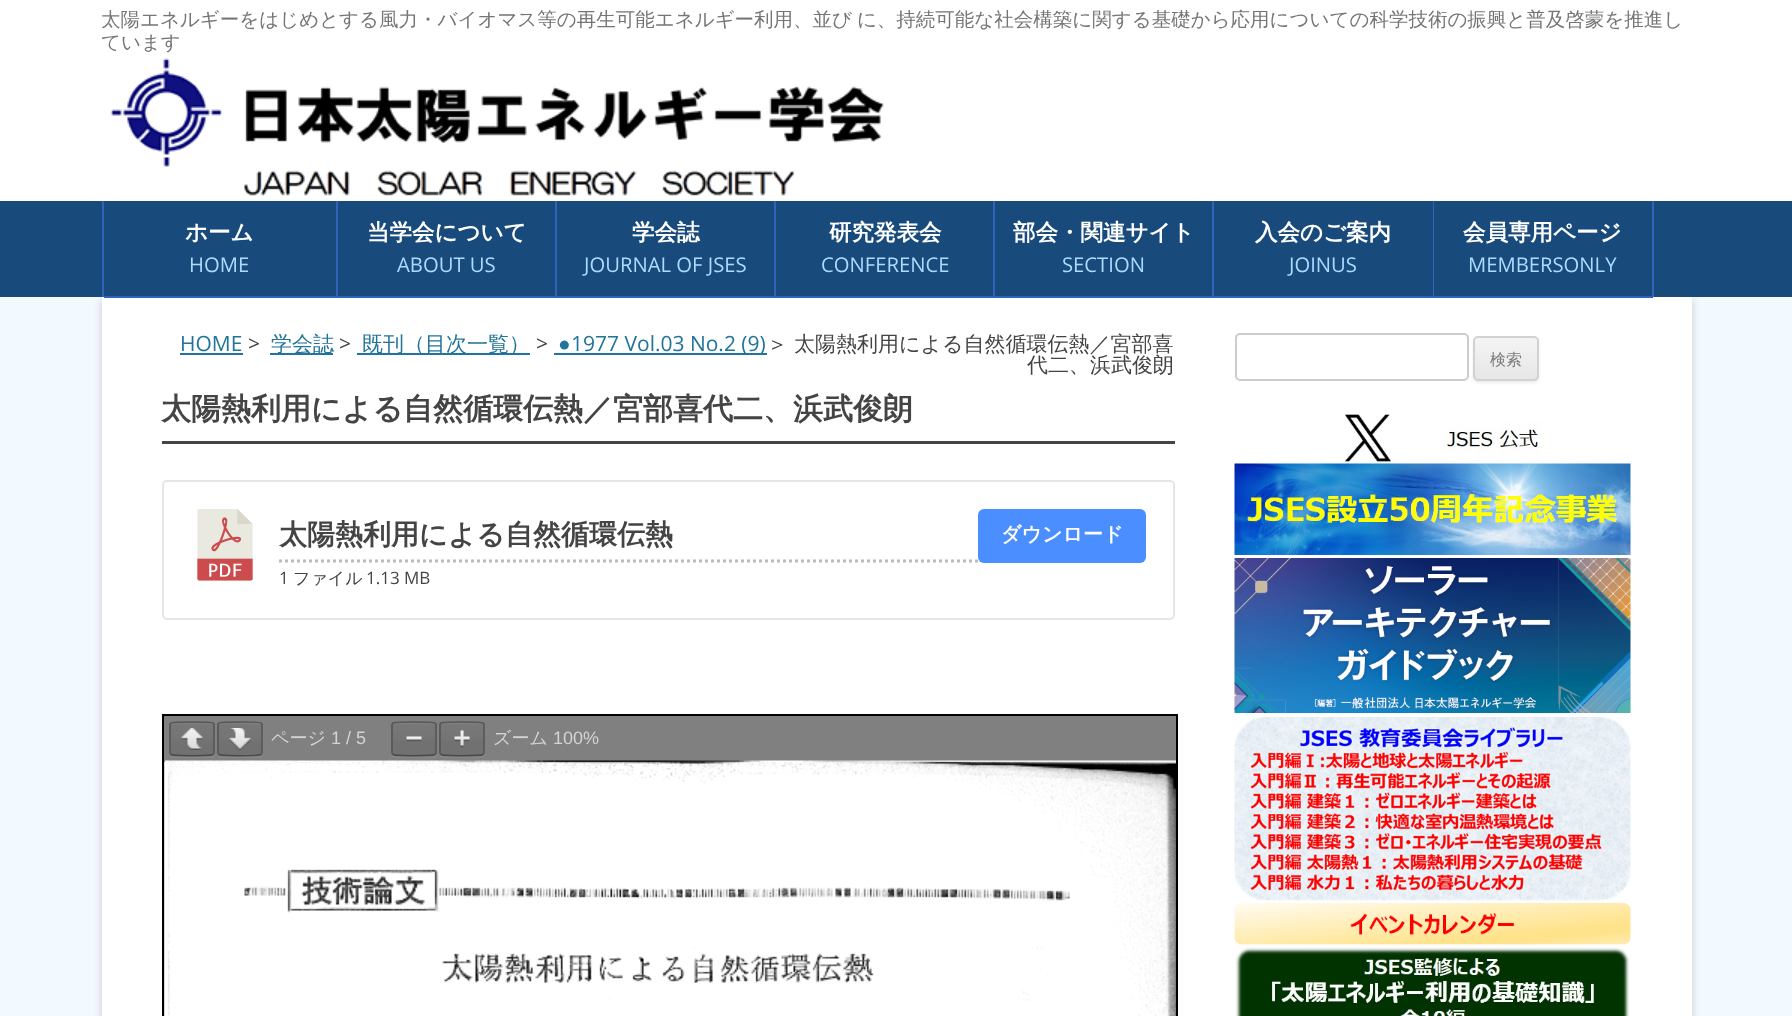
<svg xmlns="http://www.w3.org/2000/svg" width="1792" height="1016">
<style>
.a{font:500 19.5px WenQuanYi Zen Hei;fill:#757575}
.b{font:bold 22.5px WenQuanYi Zen Hei;fill:#fff}
.c{font:20.25px Open Sans;fill:#acdbff}
.d{font:21px Open Sans;fill:#21759b}
.e{font:21px Open Sans;fill:#444}
.f{font:500 21px WenQuanYi Zen Hei;fill:#21759b}
.g{font:21px Liberation Sans;fill:#21759b}
.h{font:500 21px WenQuanYi Zen Hei;fill:#444}
.i{font:bold 30px WenQuanYi Zen Hei;fill:#444}
.j{font:bold 28px WenQuanYi Zen Hei;fill:#444}
.k{font:17px Open Sans;fill:#444}
.l{font:500 17px WenQuanYi Zen Hei;fill:#444}
.m{font:bold 20px WenQuanYi Zen Hei;fill:#fff}
.n{font:500 18px WenQuanYi Zen Hei;fill:#d3d3d3}
.o{font:18px Liberation Sans;fill:#d3d3d3}
.p{font:500 16px WenQuanYi Zen Hei;fill:#7c7c7c}
</style>
<defs>
<linearGradient id="g1" gradientUnits="userSpaceOnUse" x1="192" y1="723" x2="192" y2="755"><stop offset="0" stop-color="#fff" stop-opacity="0.05"/><stop offset="1" stop-color="#fff" stop-opacity="0"/></linearGradient>
<linearGradient id="g2" gradientUnits="userSpaceOnUse" x1="240" y1="723" x2="240" y2="755"><stop offset="0" stop-color="#fff" stop-opacity="0.05"/><stop offset="1" stop-color="#fff" stop-opacity="0"/></linearGradient>
<linearGradient id="g3" gradientUnits="userSpaceOnUse" x1="414" y1="723" x2="414" y2="755"><stop offset="0" stop-color="#fff" stop-opacity="0.05"/><stop offset="1" stop-color="#fff" stop-opacity="0"/></linearGradient>
<linearGradient id="g4" gradientUnits="userSpaceOnUse" x1="462" y1="723" x2="462" y2="755"><stop offset="0" stop-color="#fff" stop-opacity="0.05"/><stop offset="1" stop-color="#fff" stop-opacity="0"/></linearGradient>
<clipPath id="clip1"><rect x="1473" y="336" width="66" height="45" rx="5"/></clipPath>
<linearGradient id="g5" gradientUnits="userSpaceOnUse" x1="1506" y1="338" x2="1506" y2="380"><stop offset="0" stop-color="#f4f4f4"/><stop offset="1" stop-color="#e6e6e6"/></linearGradient>
</defs>
<rect width="100%" height="100%" fill="#f2f9ff"/>
<path fill="#fff" d="M0 0h1792v201H0z"/>
<image href="1.png" x="110" y="58" width="774" height="138"/>
<path fill="#184a7b" d="M0 201h1792v96H0z"/>
<path fill="#3063bc" d="M102 201h2v96H102z"/>
<path fill="#6464644d" filter="blur(4.5px)" d="M102 300h1590v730H102z"/>
<path fill="#fff" d="M102 297h1590v719H102z"/>
<path fill="#3063bc" d="M104 296h1549v2H104z"/>
<path fill="#184a7b" d="M105 295h231v1H105z"/>
<path fill="#3063bc" d="M336 201h2v95H336z"/>
<path fill="#184a7b" d="M338 295h217v1H338z"/>
<path fill="#3063bc" d="M555 201h2v95H555z"/>
<path fill="#184a7b" d="M557 295h217v1H557z"/>
<path fill="#3063bc" d="M774 201h2v95H774z"/>
<path fill="#184a7b" d="M776 295h217v1H776z"/>
<path fill="#3063bc" d="M993 201h2v95H993z"/>
<path fill="#184a7b" d="M995 295h217v1H995z"/>
<path fill="#3063bc" d="M1212 201h2v95H1212z"/>
<path fill="#184a7b" d="M1214 295h219v1H1214z"/>
<path fill="#3063bc" d="M1433 201h1v95H1433z"/>
<path fill="#3063bc" d="M1653 296h1v1H1653z"/>
<path fill="#184a7b" d="M1434 295h218v1H1434z"/>
<path fill="#3063bc" d="M1652 201h2v95H1652z"/>
<path fill="#21759b" d="M180 353h63v2H180z"/>
<path fill="#21759b" d="M270 353h63v2H270z"/>
<path fill="#21759b" d="M357 353h173v2H357z"/>
<path fill="#21759b" d="M554 353h213v2H554z"/>
<path fill="#444" d="M162 441h1013v3H162z"/>
<rect fill="none" stroke="#e5e5e5" stroke-width="2" x="163" y="481" width="1011" height="138" rx="4"/>
<image href="2.png" x="197" y="509" width="56" height="72"/>
<path fill="none" stroke="#b8bdc1" stroke-width="3" stroke-dasharray="3 3" d="M279 561h699"/>
<rect fill="#4a8eff" x="978" y="509" width="168" height="54" rx="6"/>
<path fill="#d3d3d3" d="M164 762h1v254H164z"/>
<path fill="none" stroke="#000" stroke-width="2" d="M163 715h1014v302H163z"/>
<path fill="#808080" d="M164 716h1012v46H164z"/>
<path fill="#868686" d="M170 755c0 1 1 3 2 3h27c20 0 16 3 16-18c0-2 1-13-1-16v24c0 9 0 8-9 8h-26c-2 0-7 1-9-1z"/>
<rect fill="#717171" x="171" y="723" width="42" height="32" rx="1.5"/>
<path fill="url(#g1)" d="M171 723h42v18H171z"/>
<path fill="#7f7f7f" d="M172 724h40l1 2c0-5-3-3-8-3h-26c-5 0-8-2-8 3z"/>
<path fill="none" stroke="#575757" stroke-width="1.5" d="M171 723c1-1.5 41-1.5 42 0"/>
<path fill="none" stroke="#00000061" stroke-width="1.5" d="M213 723c.5 .5 1 1 1 1.5v28.5c0 .5-.5 1-1 1.5"/>
<path fill="none" stroke="#0000006b" stroke-width="1.5" d="M213 754.5c-1 1.5-41 1.5-42 0"/>
<path fill="none" stroke="#00000061" stroke-width="1.5" d="M171 754.5c-.5-.5-1-1-1-1.5v-28.5c0-.5 .5-1 1-1.5"/>
<image href="3.png" x="181" y="728" width="22" height="22"/>
<path fill="#868686" d="M218 755c0 1 1 3 2 3h27c20 0 16 3 16-18c0-2 1-13-1-16v24c0 9 0 8-9 8h-26c-2 0-7 1-9-1z"/>
<rect fill="#717171" x="219" y="723" width="42" height="32" rx="1.5"/>
<path fill="url(#g2)" d="M219 723h42v18H219z"/>
<path fill="#7f7f7f" d="M220 724h40l1 2c0-5-3-3-8-3h-26c-5 0-8-2-8 3z"/>
<path fill="none" stroke="#575757" stroke-width="1.5" d="M219 723c1-1.5 41-1.5 42 0"/>
<path fill="none" stroke="#00000061" stroke-width="1.5" d="M261 723c.5 .5 1 1 1 1.5v28.5c0 .5-.5 1-1 1.5"/>
<path fill="none" stroke="#0000006b" stroke-width="1.5" d="M261 754.5c-1 1.5-41 1.5-42 0"/>
<path fill="none" stroke="#00000061" stroke-width="1.5" d="M219 754.5c-.5-.5-1-1-1-1.5v-28.5c0-.5 .5-1 1-1.5"/>
<image href="4.png" x="229" y="728" width="22" height="22"/>
<path fill="#868686" d="M392 755c0 1 1 3 2 3h27c20 0 16 3 16-18c0-2 1-13-1-16v24c0 9 0 8-9 8h-26c-2 0-7 1-9-1z"/>
<rect fill="#717171" x="393" y="723" width="42" height="32" rx="1.5"/>
<path fill="url(#g3)" d="M393 723h42v18H393z"/>
<path fill="#7f7f7f" d="M394 724h40l1 2c0-5-3-3-8-3h-26c-5 0-8-2-8 3z"/>
<path fill="none" stroke="#575757" stroke-width="1.5" d="M393 723c1-1.5 41-1.5 42 0"/>
<path fill="none" stroke="#00000061" stroke-width="1.5" d="M435 723c.5 .5 1 1 1 1.5v28.5c0 .5-.5 1-1 1.5"/>
<path fill="none" stroke="#0000006b" stroke-width="1.5" d="M435 754.5c-1 1.5-41 1.5-42 0"/>
<path fill="none" stroke="#00000061" stroke-width="1.5" d="M393 754.5c-.5-.5-1-1-1-1.5v-28.5c0-.5 .5-1 1-1.5"/>
<image href="5.png" x="406" y="736" width="16" height="6"/>
<path fill="#868686" d="M440 755c0 1 1 3 2 3h27c20 0 16 3 16-18c0-2 1-13-1-16v24c0 9 0 8-9 8h-26c-2 0-7 1-9-1z"/>
<rect fill="#717171" x="441" y="723" width="42" height="32" rx="1.5"/>
<path fill="url(#g4)" d="M441 723h42v18H441z"/>
<path fill="#7f7f7f" d="M442 724h40l1 2c0-5-3-3-8-3h-26c-5 0-8-2-8 3z"/>
<path fill="none" stroke="#575757" stroke-width="1.5" d="M441 723c1-1.5 41-1.5 42 0"/>
<path fill="none" stroke="#00000061" stroke-width="1.5" d="M483 723c.5 .5 1 1 1 1.5v28.5c0 .5-.5 1-1 1.5"/>
<path fill="none" stroke="#0000006b" stroke-width="1.5" d="M483 754.5c-1 1.5-41 1.5-42 0"/>
<path fill="none" stroke="#00000061" stroke-width="1.5" d="M441 754.5c-.5-.5-1-1-1-1.5v-28.5c0-.5 .5-1 1-1.5"/>
<image href="6.png" x="454" y="730" width="16" height="18"/>
<image href="7.png" x="165" y="760" width="1011" height="256"/>
<rect fill="none" stroke="#ccc" stroke-width="2" x="1236" y="334" width="232" height="46" rx="4"/>
<rect fill="#4040401a" filter="blur(1.5px)" x="1473" y="338" width="66" height="45" rx="5"/>
<g clip-path="url(#clip1)">
<path fill="url(#g5)" d="M1473 338h66v42H1473z"/>
</g>
<rect fill="none" stroke="#d2d2d2" stroke-width="2" x="1474" y="337" width="64" height="43" rx="4"/>
<image href="8.png" x="1344" y="414" width="200" height="49"/>
<image href="9.png" x="1234" y="463" width="397" height="92"/>
<image href="10.png" x="1234" y="558" width="397" height="155"/>
<image href="11.png" x="1234" y="717" width="397" height="184"/>
<image href="12.png" x="1234" y="903" width="397" height="42"/>
<image href="13.png" x="1235" y="947" width="395" height="69"/>
<text class="a" x="101" y="26" word-spacing="-1">太陽エネルギーをはじめとする風力・バイオマス等の再生可能エネルギー利用、並び に、持続可能な社会構築に関する基礎から応用についての科学技術の振興と普及啓蒙を推進し</text>
<text class="a" x="101" y="49">ています</text>
<text class="b" x="185" y="240">ホーム</text>
<text class="c" x="189" y="272">HOME</text>
<text class="b" x="367" y="240">当学会について</text>
<text class="c" x="397" y="272">ABOUT US</text>
<text class="b" x="632" y="240">学会誌</text>
<text class="c" x="584" y="272">JOURNAL OF JSES</text>
<text class="b" x="829" y="240">研究発表会</text>
<text class="c" x="821" y="272">CONFERENCE</text>
<text class="b" x="1013" y="240">部会・関連サイト</text>
<text class="c" x="1062" y="272">SECTION</text>
<text class="b" x="1255" y="240">入会のご案内</text>
<text class="c" x="1289" y="272">JOINUS</text>
<text class="b" x="1463" y="240">会員専用ページ</text>
<text class="c" x="1468" y="272">MEMBERSONLY</text>
<text class="d" x="180" y="351">HOME</text>
<text class="e" x="248" y="351">&gt;</text>
<text class="f" x="271" y="351">学会誌</text>
<text class="e" x="339" y="351">&gt;</text>
<text class="f" x="362" y="351">既刊（目次一覧）</text>
<text class="e" x="536" y="351">&gt;</text>
<text class="g" x="558" y="351">●</text>
<text class="d" x="571" y="351">1977 Vol.03 No.2 (9)</text>
<text class="h" x="771" y="351">&gt;</text>
<text class="h" x="794" y="351">太陽熱利用による自然循環伝熱／宮部喜</text>
<text class="h" x="1027" y="372">代二、浜武俊朗</text>
<text class="i" x="161" y="419">太陽熱利用による自然循環伝熱／宮部喜代二、浜武俊朗</text>
<text class="j" x="279" y="544">太陽熱利用による自然循環伝熱</text>
<text class="k" x="279" y="584">1</text>
<text class="l" x="293" y="584">ファイル</text>
<text class="k" x="366" y="584">1.13 MB</text>
<text class="m" x="1001" y="541">ダウンロード</text>
<text class="n" x="271" y="744">ページ</text>
<text class="o" x="331" y="744">1 / 5</text>
<text class="n" x="493" y="744">ズーム</text>
<text class="o" x="553" y="744">100%</text>
<text class="p" x="1490" y="365">検索</text>
</svg>
